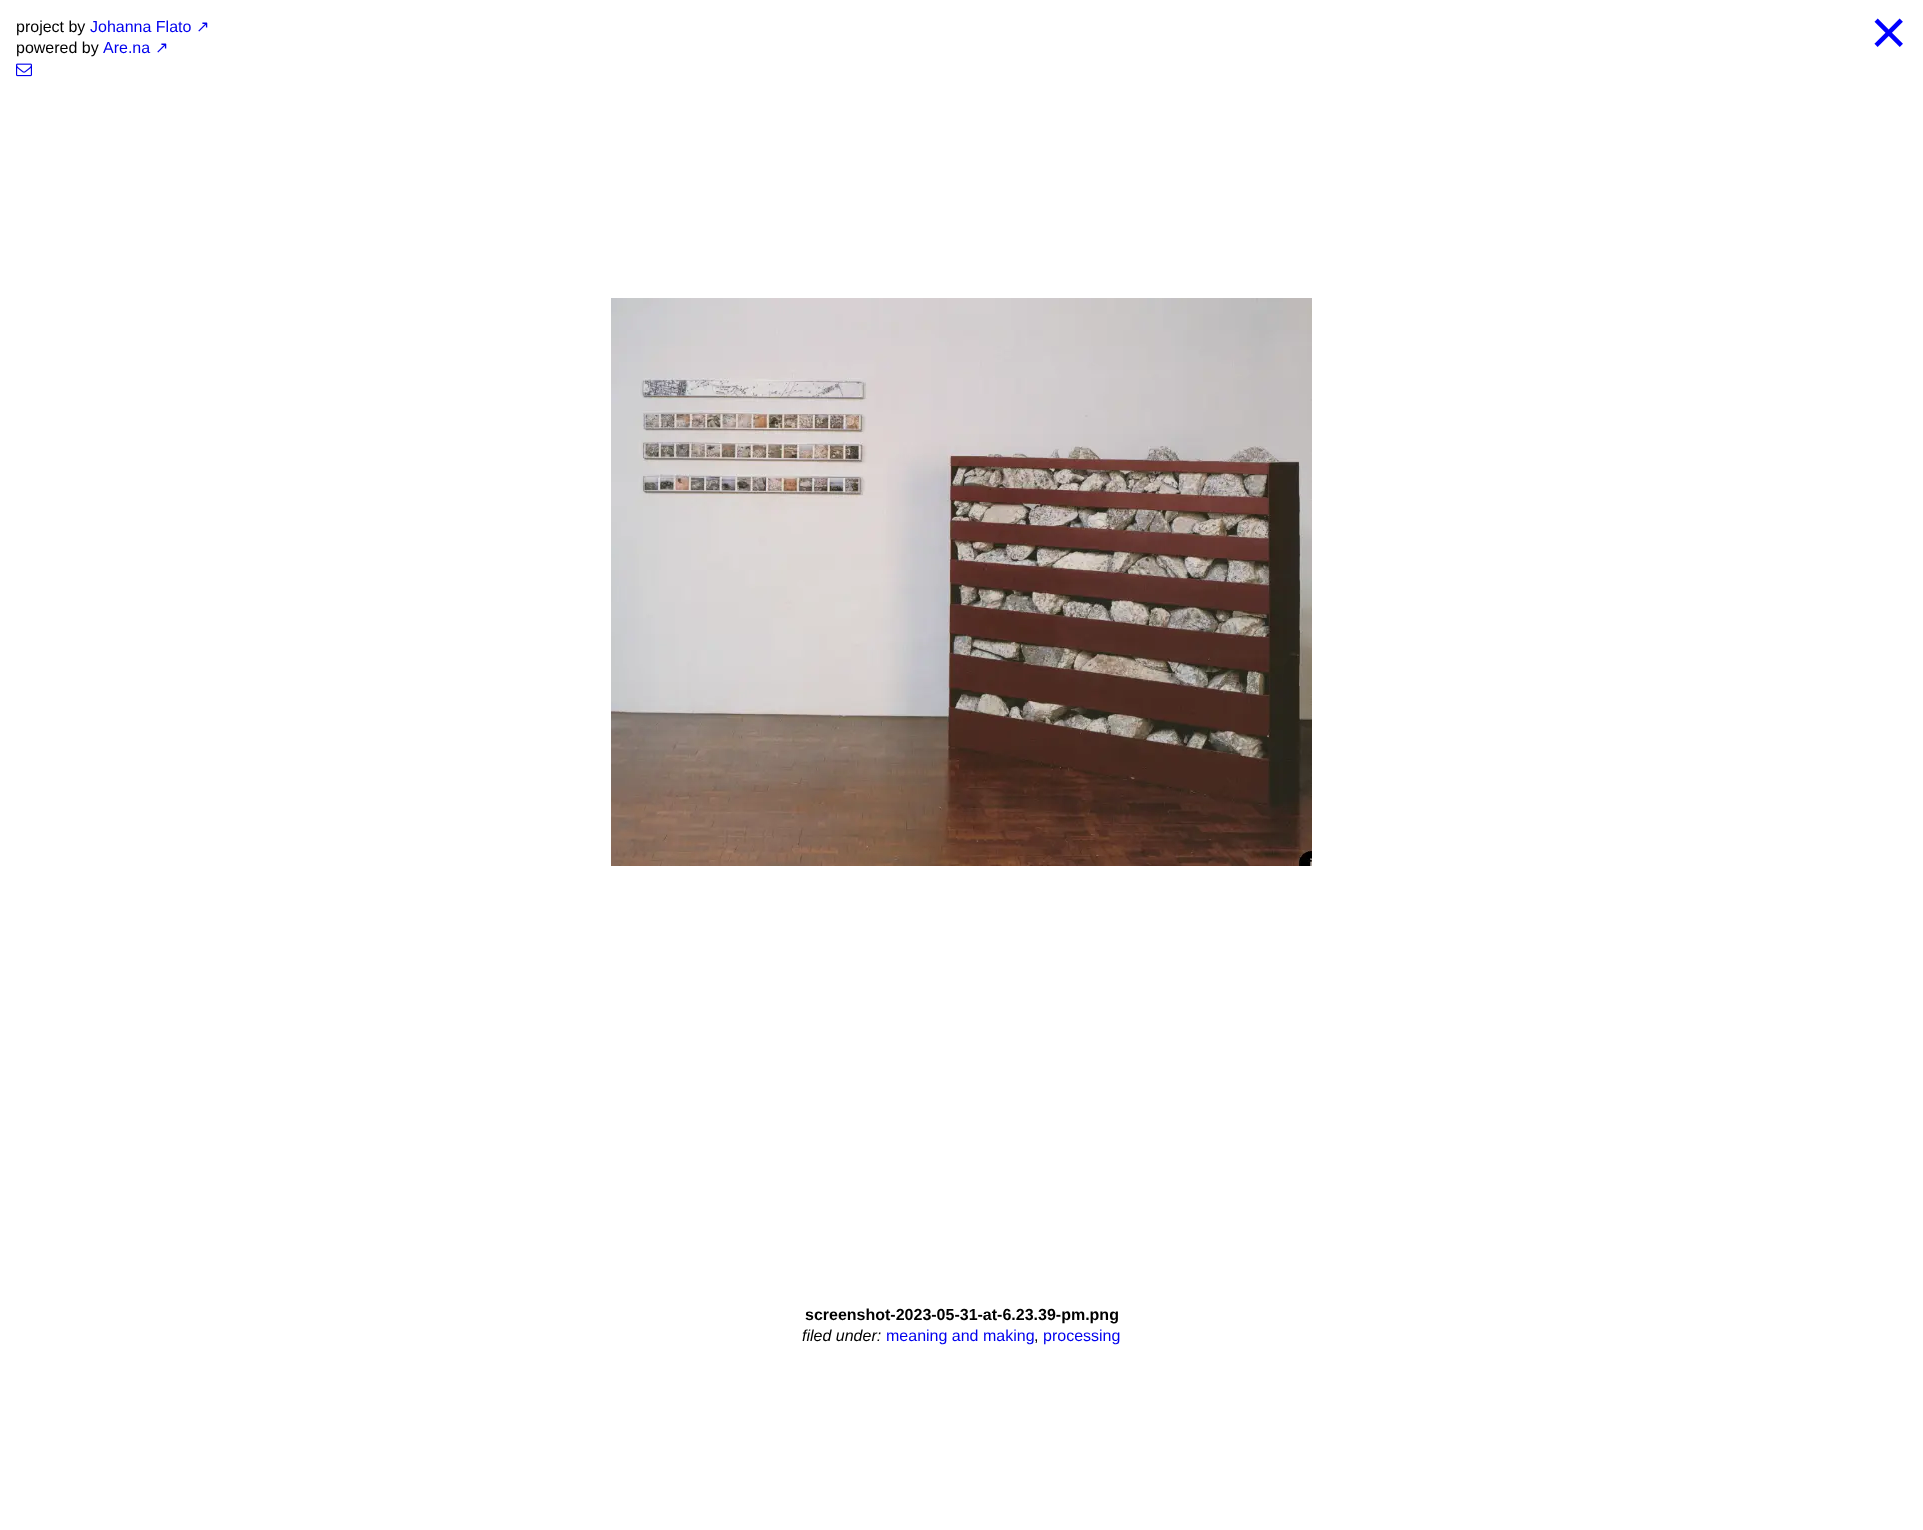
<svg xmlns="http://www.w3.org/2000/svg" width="1923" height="1530">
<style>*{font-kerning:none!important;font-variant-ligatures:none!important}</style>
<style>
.a{font:16px Liberation Sans;fill:#000}
.b{font:16px Liberation Sans;fill:#00e}
.c{font:16px DejaVu Sans;fill:#00e}
.d{font:64px Liberation Sans;fill:#00f}
.e{font:bold 16px Liberation Sans;fill:#000}
.f{font:italic 16px Liberation Sans;fill:#000}
</style>
<rect width="100%" height="100%" fill="#fff"/>
<image href="1.png" x="16" y="63" width="16" height="14"/>
<image href="2.png" x="611" y="298" width="701" height="568"/>
<text class="a" x="16" y="32">project by</text>
<text class="b" x="90" y="32">Johanna Flato</text>
<text class="c" x="196" y="32">↗︎</text>
<text class="a" x="16" y="53">powered by</text>
<text class="b" x="103" y="53">Are.na</text>
<text class="c" x="155" y="53">↗︎</text>
<text class="d" x="1870" y="54">×</text>
<text class="e" x="805" y="1320">screenshot-2023-05-31-at-6.23.39-pm.png</text>
<text class="f" x="802" y="1341">filed under:</text>
<text class="b" x="886" y="1341">meaning and making</text>
<text class="a" x="1034" y="1341">,</text>
<text class="b" x="1043" y="1341">processing</text>
</svg>
